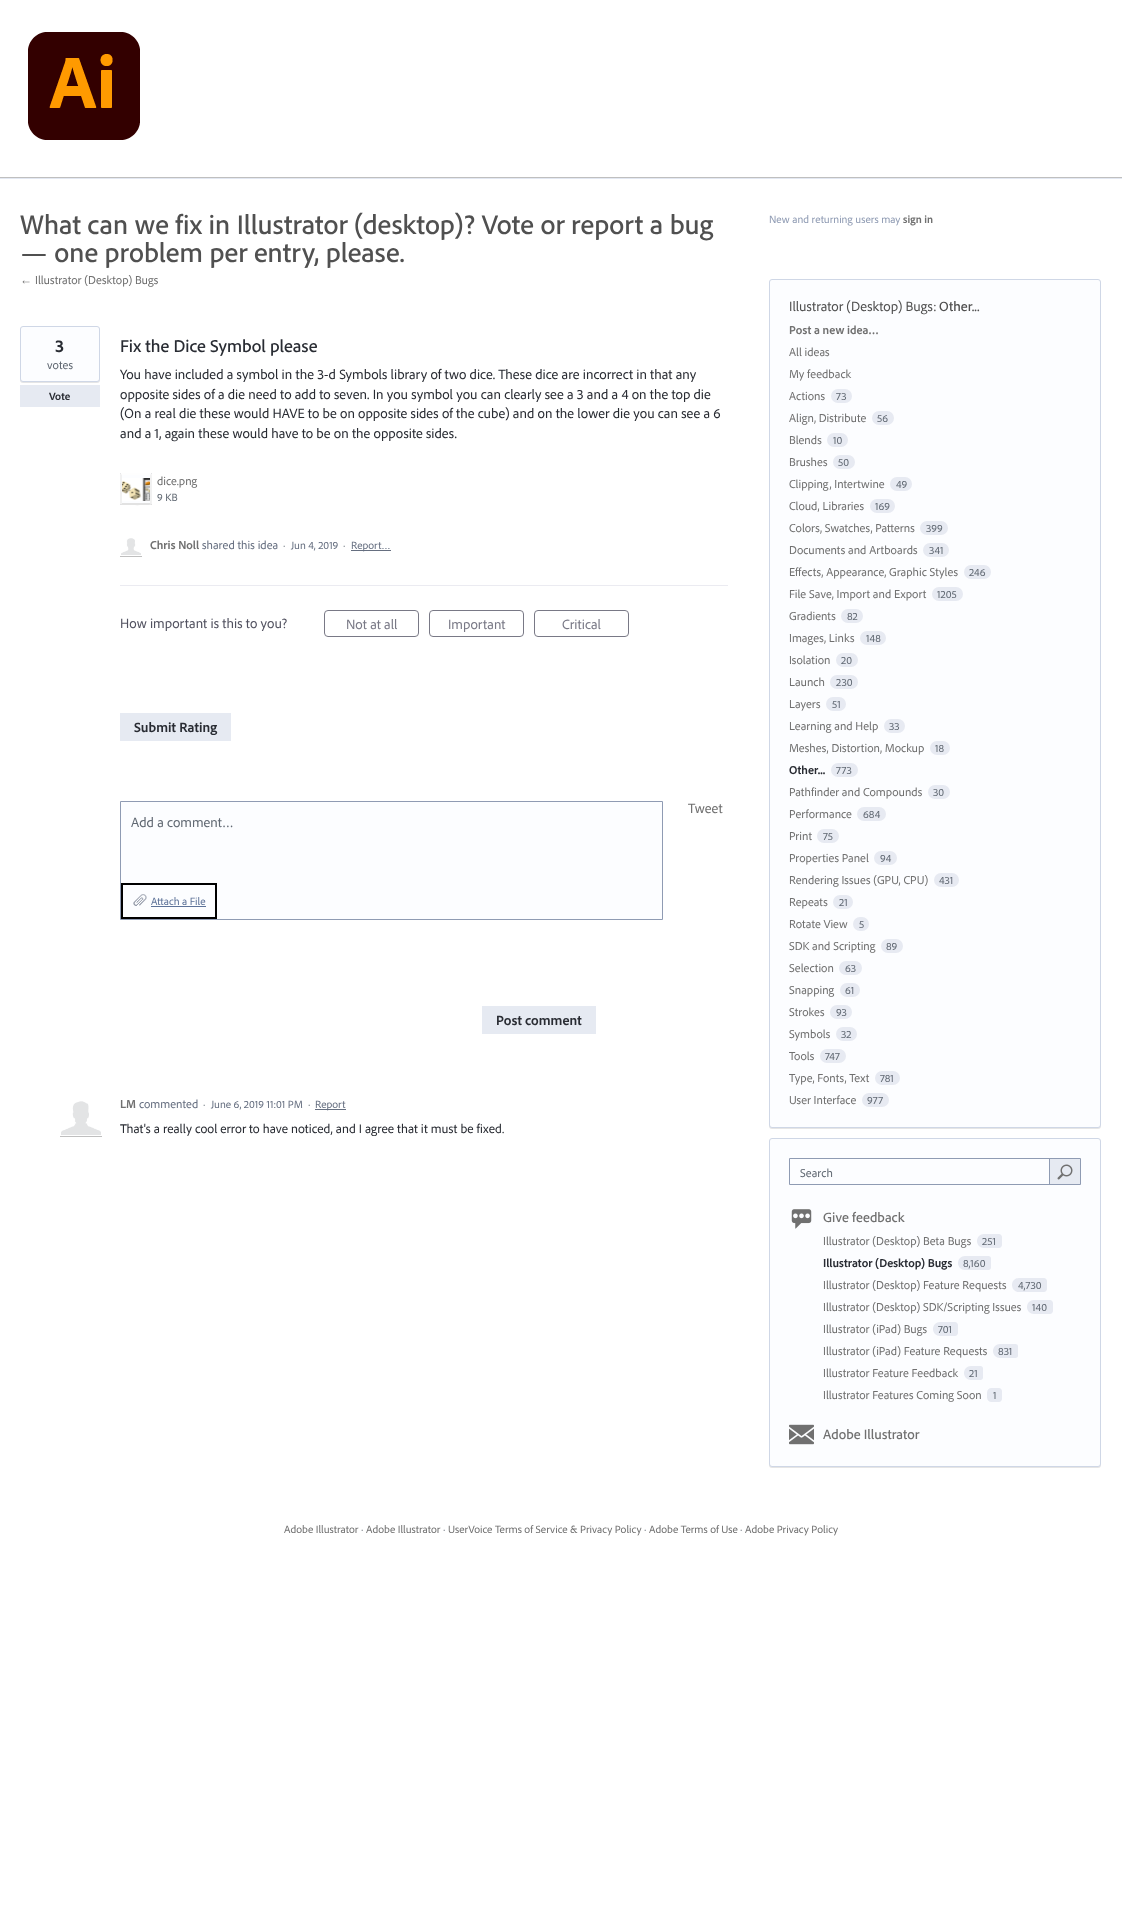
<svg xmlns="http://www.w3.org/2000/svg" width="1122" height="1912">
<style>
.a{font:500 28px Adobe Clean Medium;fill:#505050}
.b{font:12px Liberation Sans;fill:#707070}
.c{font:12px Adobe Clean;fill:#707070}
.d{font:bold 18px Adobe Clean;fill:#292c33}
.e{font:12px Adobe Clean;fill:#616973}
.f{font:bold 11px Adobe Clean;fill:#292c33}
.g{font:500 18px Adobe Clean Medium;fill:#292c33}
.h{font:14px Adobe Clean;fill:#292c33}
.i{font:11px Adobe Clean;fill:#616973}
.j{font:bold 12px Adobe Clean;fill:#707070}
.k{font:12px Adobe Clean;fill:#666f80}
.l{font:11px Adobe Clean;fill:#666f80}
.m{font:14px Adobe Clean;fill:#525260}
.n{font:14px Adobe Clean;fill:#797986}
.o{font:bold 14px Adobe Clean;fill:#292c33}
.p{font:14px Adobe Clean;fill:#707070}
.q{font:14px Adobe Clean;fill:#616973}
.r{font:11px Adobe Clean;fill:#5d7298}
.s{font:13px Adobe Clean;fill:#292c33}
.t{font:11px Adobe Clean;fill:#8f9bb3}
.u{font:bold 11px Adobe Clean;fill:#707070}
.v{font:14px Adobe Clean;fill:#505050}
.w{font:500 14px Adobe Clean Medium;fill:#505050}
.x{font:bold 12px Adobe Clean;fill:#292c33}
.y{font:500 14px Adobe Clean Medium;fill:#707070}
.z{font:11px Adobe Clean;fill:#707070}
</style>
<defs>
<clipPath id="clip1"><path d="M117 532h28v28h-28zm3 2h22v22h-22z" clip-rule="evenodd"/></clipPath>
<clipPath id="clip2"><path d="M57 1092h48v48h-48zm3 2h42v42h-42z" clip-rule="evenodd"/></clipPath>
</defs>
<rect width="100%" height="100%" fill="#fff"/>
<path fill="#bfbfbf" d="M0 177h1122v1H0z"/>
<image href="1.png" x="28" y="32" width="112" height="108"/>
<path fill="#e3e8f2" d="M0 178h1122v1H0z"/>
<rect fill="#0000001a" filter="blur(0.5px)" x="20" y="327" width="80" height="56" rx="3"/>
<rect fill="#fcfdff" stroke="#cfd7e6" x="20.5" y="326.5" width="79" height="55" rx="2.5"/>
<path fill="#e6eaf2" d="M20 385h80v22H20z"/>
<rect fill="#000000bf" filter="blur(0.5px)" x="120" y="473" width="32" height="32" rx="1"/>
<rect fill="#fcfdff" x="120" y="473" width="32" height="32" rx="1"/>
<image href="2.png" x="122" y="478" width="28" height="23"/>
<path fill="#fefefe" d="M121 473l-.5 .5l1.5 1.5h28l1.5-1.5l-.5-.5z"/>
<path fill="#f1f1f1" d="M152 504c0-3.5 .5-30-.5-30.5l-1.5 1.5v28l1.5 1.5z"/>
<path fill="#e2e2e2" d="M121 505c3.5 0 30 .5 30.5-.5l-1.5-1.5h-28l-1.5 1.5z"/>
<path fill="#f1f1f1" d="M122 475l-1.5-1.5l-.5 .5v30l.5 .5l1.5-1.5z"/>
<g clip-path="url(#clip1)">
<path fill="#00000040" filter="blur(0.5px)" d="M120 535h22v22H120z"/>
</g>
<image href="3.png" x="121" y="538" width="20" height="17"/>
<path fill="#666f80" d="M351 550h40v1H351z"/>
<path fill="#ebebf1" d="M120 585h608v1H120z"/>
<rect fill="none" stroke="#797986" x="324.5" y="610.5" width="94" height="26" rx="3.5"/>
<rect fill="none" stroke="#797986" x="429.5" y="610.5" width="94" height="26" rx="3.5"/>
<rect fill="none" stroke="#797986" x="534.5" y="610.5" width="94" height="26" rx="3.5"/>
<path fill="#e6eaf2" d="M120 713h111v28H120z"/>
<path fill="#fcfdff" stroke="#8f9bb3" d="M120.5 801.5h542v118H120.5z"/>
<image href="4.png" x="133" y="894" width="14" height="12"/>
<path fill="none" stroke="#000" stroke-width="2" d="M122 884h94v34H122z"/>
<path fill="#5d7298" d="M151 906h55v1H151z"/>
<path fill="#e6eaf2" d="M482 1006h114v28H482z"/>
<g clip-path="url(#clip2)">
<path fill="#00000040" filter="blur(0.5px)" d="M60 1095h42v42H60z"/>
</g>
<image href="5.png" x="61" y="1101" width="40" height="34"/>
<path fill="#666f80" d="M315 1109h31v1H315z"/>
<rect fill="#0000001a" filter="blur(0.5px)" x="769" y="280" width="332" height="849" rx="3"/>
<rect fill="#fcfdff" stroke="#cfd7e6" x="769.5" y="279.5" width="331" height="848" rx="2.5"/>
<rect fill="#e7eaf2" x="831" y="389" width="21" height="14" rx="7"/>
<rect fill="#e7eaf2" x="872" y="411" width="22" height="14" rx="7"/>
<rect fill="#e7eaf2" x="827" y="433" width="21" height="14" rx="7"/>
<rect fill="#e7eaf2" x="833" y="455" width="22" height="14" rx="7"/>
<rect fill="#e7eaf2" x="890" y="477" width="22" height="14" rx="7"/>
<rect fill="#e7eaf2" x="870" y="499" width="25" height="14" rx="7"/>
<rect fill="#e7eaf2" x="920" y="521" width="28" height="14" rx="7"/>
<rect fill="#e7eaf2" x="923" y="543" width="26" height="14" rx="7"/>
<rect fill="#e7eaf2" x="964" y="565" width="27" height="14" rx="7"/>
<rect fill="#e7eaf2" x="932" y="587" width="31" height="14" rx="7"/>
<rect fill="#e7eaf2" x="841" y="609" width="22" height="14" rx="7"/>
<rect fill="#e7eaf2" x="860" y="631" width="26" height="14" rx="7"/>
<rect fill="#e7eaf2" x="836" y="653" width="22" height="14" rx="7"/>
<rect fill="#e7eaf2" x="830" y="675" width="28" height="14" rx="7"/>
<rect fill="#e7eaf2" x="826" y="697" width="20" height="14" rx="7"/>
<rect fill="#e7eaf2" x="884" y="719" width="21" height="14" rx="7"/>
<rect fill="#e7eaf2" x="930" y="741" width="20" height="14" rx="7"/>
<rect fill="#e7eaf2" x="831" y="763" width="27" height="14" rx="7"/>
<rect fill="#e7eaf2" x="928" y="785" width="22" height="14" rx="7"/>
<rect fill="#e7eaf2" x="857" y="807" width="29" height="14" rx="7"/>
<rect fill="#e7eaf2" x="817" y="829" width="22" height="14" rx="7"/>
<rect fill="#e7eaf2" x="874" y="851" width="23" height="14" rx="7"/>
<rect fill="#e7eaf2" x="934" y="873" width="25" height="14" rx="7"/>
<rect fill="#e7eaf2" x="833" y="895" width="20" height="14" rx="7"/>
<rect fill="#e7eaf2" x="853" y="917" width="16" height="14" rx="7"/>
<rect fill="#e7eaf2" x="881" y="939" width="22" height="14" rx="7"/>
<rect fill="#e7eaf2" x="839" y="961" width="23" height="14" rx="7"/>
<rect fill="#e7eaf2" x="840" y="983" width="20" height="14" rx="7"/>
<rect fill="#e7eaf2" x="830" y="1005" width="22" height="14" rx="7"/>
<rect fill="#e7eaf2" x="836" y="1027" width="21" height="14" rx="7"/>
<rect fill="#e7eaf2" x="820" y="1049" width="26" height="14" rx="7"/>
<rect fill="#e7eaf2" x="875" y="1071" width="25" height="14" rx="7"/>
<rect fill="#e7eaf2" x="862" y="1093" width="27" height="14" rx="7"/>
<rect fill="#0000001a" filter="blur(0.5px)" x="769" y="1139" width="332" height="329" rx="3"/>
<rect fill="#fcfdff" stroke="#cfd7e6" x="769.5" y="1138.5" width="331" height="328" rx="2.5"/>
<path fill="none" stroke="#8f9bb3" d="M789.5 1158.5h291v26H789.5z"/>
<path fill="#e6eaf2" d="M1050 1159h30v25H1050z"/>
<path fill="#8f9bb3" d="M1049 1159h1v25H1049z"/>
<image href="6.png" x="1057" y="1164" width="16" height="16"/>
<image href="7.png" x="791" y="1209" width="21" height="20"/>
<path fill="#e7eaf2" d="M984 1234h12v14h-12c-4 0-7-3-7-7c0-4 3-7 7-7z"/>
<path fill="#e7eaf2" d="M996 1234h3c1.5 0 3 1.5 3 3v8c0 1.5-1.5 3-3 3h-3z"/>
<path fill="#e7eaf2" d="M965 1256h21v14h-21c-4 0-7-3-7-7c0-4 3-7 7-7z"/>
<path fill="#e7eaf2" d="M986 1256h2.5c1.5 0 2.5 1 2.5 2.5v9c0 1.5-1 2.5-2.5 2.5h-2.5z"/>
<path fill="#e7eaf2" d="M1019 1278h22v14h-22c-4 0-7-3-7-7c0-4 3-7 7-7z"/>
<path fill="#e7eaf2" d="M1041 1278h3c1.5 0 3 1.5 3 3v8c0 1.5-1.5 3-3 3h-3z"/>
<path fill="#e7eaf2" d="M1034 1300h13v14h-13c-4 0-7-3-7-7c0-4 3-7 7-7z"/>
<path fill="#e7eaf2" d="M1047 1300h3c1.5 0 3 1.5 3 3v8c0 1.5-1.5 3-3 3h-3z"/>
<path fill="#e7eaf2" d="M940 1322h12v14h-12c-4 0-7-3-7-7c0-4 3-7 7-7z"/>
<path fill="#e7eaf2" d="M952 1322h3c1.5 0 3 1.5 3 3v8c0 1.5-1.5 3-3 3h-3z"/>
<path fill="#e7eaf2" d="M1000 1344h13v14h-13c-4 0-7-3-7-7c0-4 3-7 7-7z"/>
<path fill="#e7eaf2" d="M1013 1344h2.5c1.5 0 2.5 1 2.5 2.5v9c0 1.5-1 2.5-2.5 2.5h-2.5z"/>
<path fill="#e7eaf2" d="M971 1366h7v14h-7c-4 0-7-3-7-7c0-4 3-7 7-7z"/>
<path fill="#e7eaf2" d="M978 1366h2.5c1.5 0 2.5 1 2.5 2.5v9c0 1.5-1 2.5-2.5 2.5h-2.5z"/>
<path fill="#e7eaf2" d="M991.5 1388h4.5v14h-4.5c-2.5 0-4.5-2-4.5-4.5v-5c0-2.5 2-4.5 4.5-4.5z"/>
<path fill="#e7eaf2" d="M996 1388h3c1.5 0 3 1.5 3 3v8c0 1.5-1.5 3-3 3h-3z"/>
<image href="8.png" x="789" y="1424" width="25" height="21"/>
<text class="a" x="20" y="234">What can we fix in Illustrator (desktop)? Vote or report a bug</text>
<text class="a" x="20" y="262">— one problem per entry, please.</text>
<text class="b" x="20" y="284">←</text>
<text class="c" x="35" y="284">Illustrator (Desktop) Bugs</text>
<text class="d" x="55" y="352">3</text>
<text class="e" x="47" y="369">votes</text>
<text class="f" x="49" y="400">Vote</text>
<text class="g" x="120" y="352">Fix the Dice Symbol please</text>
<text class="h" x="120" y="379">You have included a symbol in the 3-d Symbols library of two dice. These dice are incorrect in that any</text>
<text class="h" x="120" y="399">opposite sides of a die need to add to seven. In you symbol you can clearly see a 3 and a 4 on the top die</text>
<text class="h" x="120" y="418">(On a real die these would HAVE to be on opposite sides of the cube) and on the lower die you can see a 6</text>
<text class="h" x="120" y="438">and a 1, again these would have to be on the opposite sides.</text>
<text class="c" x="157" y="485">dice.png</text>
<text class="i" x="157" y="501">9 KB</text>
<text class="j" x="150" y="549">Chris Noll</text>
<text class="k" x="202" y="549">shared this idea</text>
<text class="i" x="283" y="549">·</text>
<text class="l" x="291" y="549">Jun 4, 2019</text>
<text class="i" x="343" y="549">·</text>
<text class="l" x="351" y="549">Report…</text>
<text class="m" x="120" y="628">How important is this to you?</text>
<text class="n" x="346" y="629">Not at all</text>
<text class="n" x="448" y="629">Important</text>
<text class="n" x="562" y="629">Critical</text>
<text class="o" x="134" y="732">Submit Rating</text>
<text class="p" x="688" y="813">Tweet</text>
<text class="q" x="131" y="827">Add a comment…</text>
<text class="r" x="151" y="905">Attach a File</text>
<text class="o" x="496" y="1025">Post comment</text>
<text class="j" x="120" y="1108">LM</text>
<text class="k" x="139" y="1108">commented</text>
<text class="i" x="203" y="1108">·</text>
<text class="l" x="211" y="1108">June 6, 2019 11:01 PM</text>
<text class="i" x="308" y="1108">·</text>
<text class="l" x="315" y="1108">Report</text>
<text class="s" x="120" y="1133">That's a really cool error to have noticed, and I agree that it must be fixed.</text>
<text class="t" x="769" y="223">New and returning users may</text>
<text class="u" x="903" y="223">sign in</text>
<text class="v" x="789" y="311">Illustrator (Desktop) Bugs:</text>
<text class="w" x="939" y="311">Other...</text>
<text class="j" x="789" y="334">Post a new idea…</text>
<text class="c" x="789" y="356">All ideas</text>
<text class="c" x="789" y="378">My feedback</text>
<text class="c" x="789" y="400">Actions</text>
<text class="i" x="836" y="400">73</text>
<text class="c" x="789" y="422">Align, Distribute</text>
<text class="i" x="877" y="422">56</text>
<text class="c" x="789" y="444">Blends</text>
<text class="i" x="833" y="444">10</text>
<text class="c" x="789" y="466">Brushes</text>
<text class="i" x="838" y="466">50</text>
<text class="c" x="789" y="488">Clipping, Intertwine</text>
<text class="i" x="896" y="488">49</text>
<text class="c" x="789" y="510">Cloud, Libraries</text>
<text class="i" x="875" y="510">169</text>
<text class="c" x="789" y="532">Colors, Swatches, Patterns</text>
<text class="i" x="926" y="532">399</text>
<text class="c" x="789" y="554">Documents and Artboards</text>
<text class="i" x="929" y="554">341</text>
<text class="c" x="789" y="576">Effects, Appearance, Graphic Styles</text>
<text class="i" x="969" y="576">246</text>
<text class="c" x="789" y="598">File Save, Import and Export</text>
<text class="i" x="937" y="598">1205</text>
<text class="c" x="789" y="620">Gradients</text>
<text class="i" x="847" y="620">82</text>
<text class="c" x="789" y="642">Images, Links</text>
<text class="i" x="866" y="642">148</text>
<text class="c" x="789" y="664">Isolation</text>
<text class="i" x="841" y="664">20</text>
<text class="c" x="789" y="686">Launch</text>
<text class="i" x="836" y="686">230</text>
<text class="c" x="789" y="708">Layers</text>
<text class="i" x="832" y="708">51</text>
<text class="c" x="789" y="730">Learning and Help</text>
<text class="i" x="889" y="730">33</text>
<text class="c" x="789" y="752">Meshes, Distortion, Mockup</text>
<text class="i" x="935" y="752">18</text>
<text class="x" x="789" y="774">Other...</text>
<text class="i" x="836" y="774">773</text>
<text class="c" x="789" y="796">Pathfinder and Compounds</text>
<text class="i" x="933" y="796">30</text>
<text class="c" x="789" y="818">Performance</text>
<text class="i" x="863" y="818">684</text>
<text class="c" x="789" y="840">Print</text>
<text class="i" x="823" y="840">75</text>
<text class="c" x="789" y="862">Properties Panel</text>
<text class="i" x="880" y="862">94</text>
<text class="c" x="789" y="884">Rendering Issues (GPU, CPU)</text>
<text class="i" x="939" y="884">431</text>
<text class="c" x="789" y="906">Repeats</text>
<text class="i" x="839" y="906">21</text>
<text class="c" x="789" y="928">Rotate View</text>
<text class="i" x="859" y="928">5</text>
<text class="c" x="789" y="950">SDK and Scripting</text>
<text class="i" x="886" y="950">89</text>
<text class="c" x="789" y="972">Selection</text>
<text class="i" x="845" y="972">63</text>
<text class="c" x="789" y="994">Snapping</text>
<text class="i" x="845" y="994">61</text>
<text class="c" x="789" y="1016">Strokes</text>
<text class="i" x="836" y="1016">93</text>
<text class="c" x="789" y="1038">Symbols</text>
<text class="i" x="841" y="1038">32</text>
<text class="c" x="789" y="1060">Tools</text>
<text class="i" x="825" y="1060">747</text>
<text class="c" x="789" y="1082">Type, Fonts, Text</text>
<text class="i" x="880" y="1082">781</text>
<text class="c" x="789" y="1104">User Interface</text>
<text class="i" x="867" y="1104">977</text>
<text class="e" x="800" y="1177">Search</text>
<text class="y" x="823" y="1222">Give feedback</text>
<text class="c" x="823" y="1245">Illustrator (Desktop) Beta Bugs</text>
<text class="i" x="982" y="1245">251</text>
<text class="x" x="823" y="1267">Illustrator (Desktop) Bugs</text>
<text class="i" x="963" y="1267">8,160</text>
<text class="c" x="823" y="1289">Illustrator (Desktop) Feature Requests</text>
<text class="i" x="1018" y="1289">4,730</text>
<text class="c" x="823" y="1311">Illustrator (Desktop) SDK/Scripting Issues</text>
<text class="i" x="1032" y="1311">140</text>
<text class="c" x="823" y="1333">Illustrator (iPad) Bugs</text>
<text class="i" x="938" y="1333">701</text>
<text class="c" x="823" y="1355">Illustrator (iPad) Feature Requests</text>
<text class="i" x="998" y="1355">831</text>
<text class="c" x="823" y="1377">Illustrator Feature Feedback</text>
<text class="i" x="969" y="1377">21</text>
<text class="c" x="823" y="1399">Illustrator Features Coming Soon</text>
<text class="i" x="993" y="1399">1</text>
<text class="y" x="823" y="1439">Adobe Illustrator</text>
<text class="z" x="284" y="1533">Adobe Illustrator</text>
<text class="i" x="361" y="1533">·</text>
<text class="z" x="366" y="1533">Adobe Illustrator</text>
<text class="i" x="443" y="1533">·</text>
<text class="z" x="448" y="1533">UserVoice Terms of Service &amp; Privacy Policy</text>
<text class="i" x="644" y="1533">·</text>
<text class="z" x="649" y="1533">Adobe Terms of Use</text>
<text class="i" x="740" y="1533">·</text>
<text class="z" x="745" y="1533">Adobe Privacy Policy</text>
</svg>
